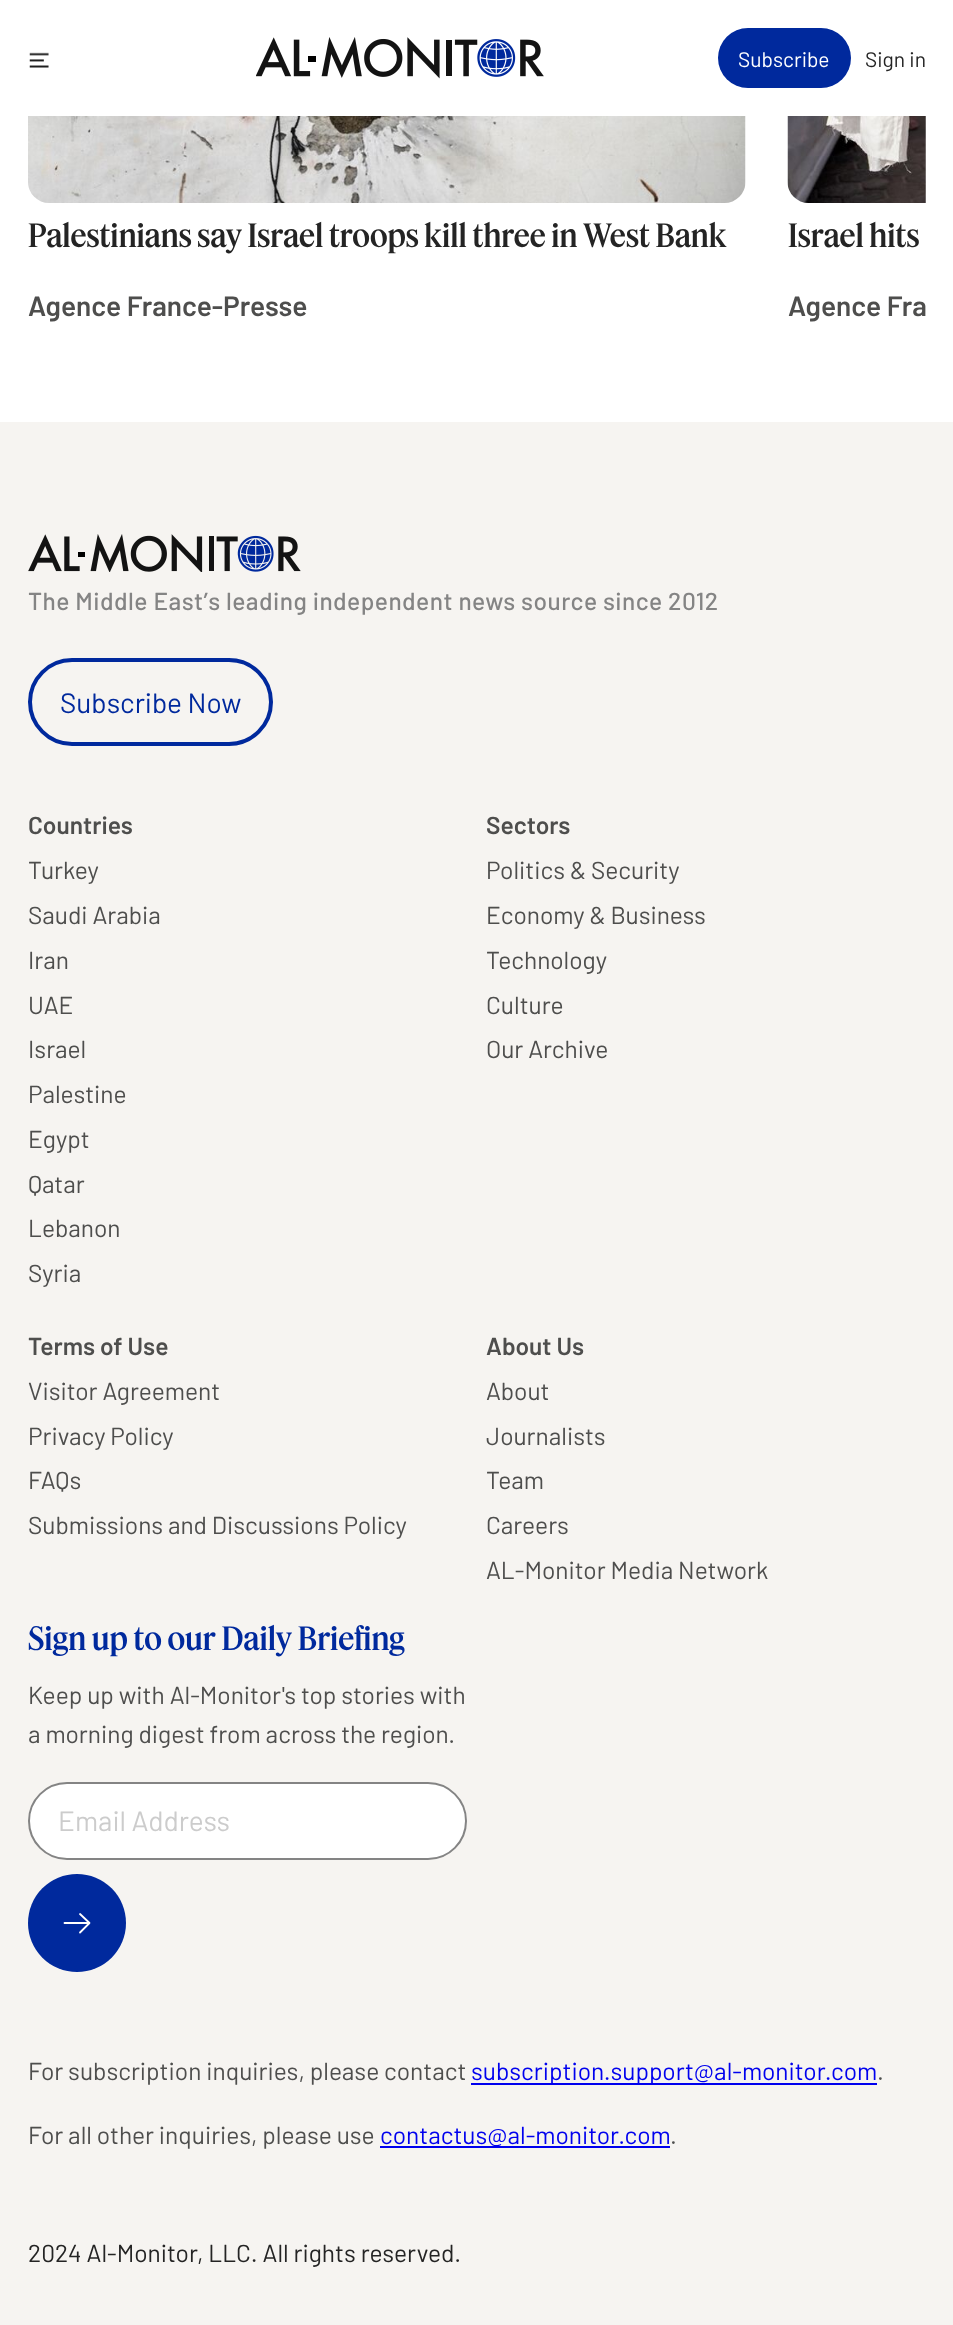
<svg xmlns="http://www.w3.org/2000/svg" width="953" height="2325">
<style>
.a{font:21px Barlow;fill:#fff}
.b{font:21px Barlow;fill:#242424}
.c{font:500 31.5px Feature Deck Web;fill:#242424}
.d{font:600 28px Barlow;fill:#4e4e4d}
.e{font:500 24.5px Barlow;letter-spacing:0.5px;fill:#848484}
.f{font:28px Barlow;fill:#00299d}
.g{font:600 24.5px Barlow;fill:#4e4e4d}
.h{font:24.5px Barlow;fill:#4e4e4d}
.i{font:500 31.5px Feature Deck Web;fill:#00299d}
.j{font:28px Barlow;fill:#ccc}
.k{font:24.5px Barlow;fill:#00e}
.l{font:24.5px Barlow;fill:#242424}
</style>
<defs>
<clipPath id="clip1"><rect x="28" y="1619" width="439" height="353" rx="21"/></clipPath>
</defs>
<rect width="100%" height="100%" fill="#f6f4f1"/>
<path fill="#fff" d="M0 0h953v422H0z"/>
<image href="1.png" x="29" y="52" width="20" height="16"/>
<image href="2.png" x="256" y="37" width="288" height="42"/>
<rect fill="#00299d" x="718" y="28" width="133" height="60" rx="30"/>
<image href="3.png" x="28" y="116" width="718" height="87"/>
<image href="4.png" x="787" y="116" width="139" height="87"/>
<image href="5.png" x="28" y="534" width="273" height="38"/>
<rect fill="none" stroke="#00299d" stroke-width="4" x="30" y="660" width="241" height="84" rx="42"/>
<rect fill="#fff" stroke="#848484" stroke-width="2" x="29" y="1783" width="437" height="76" rx="38"/>
<circle fill="#00299d" cx="77" cy="1923" r="49"/>
<path fill="none" stroke="#fff" stroke-width="1.8" stroke-linecap="round" stroke-linejoin="round" d="M80 1914l9.5 9l-9.5 9.5m9-9.5h-24.5"/>
<path fill="#00e" d="M471 2083h406v2H471z"/>
<path fill="#00e" d="M380 2146h290v2H380z"/>
<text class="a" x="738" y="67">Subscribe</text>
<text class="b" x="865" y="67">Sign in</text>
<text class="c" x="28" y="247">Palestinians say Israel troops kill three in West Bank</text>
<text class="d" x="28" y="316">Agence France-Presse</text>
<text class="c" x="788" y="247">Israel hits</text>
<text class="d" x="788" y="316">Agence Fra</text>
<text class="e" x="28" y="610">The Middle Eastʼs leading independent news source since 2012</text>
<text class="f" x="60" y="713">Subscribe Now</text>
<text class="g" x="28" y="834">Countries</text>
<text class="h" x="28" y="879">Turkey</text>
<text class="h" x="28" y="924">Saudi Arabia</text>
<text class="h" x="28" y="969">Iran</text>
<text class="h" x="28" y="1014">UAE</text>
<text class="h" x="28" y="1058">Israel</text>
<text class="h" x="28" y="1103">Palestine</text>
<text class="h" x="28" y="1148">Egypt</text>
<text class="h" x="28" y="1193">Qatar</text>
<text class="h" x="28" y="1237">Lebanon</text>
<text class="h" x="28" y="1282">Syria</text>
<text class="g" x="486" y="834">Sectors</text>
<text class="h" x="486" y="879">Politics &amp; Security</text>
<text class="h" x="486" y="924">Economy &amp; Business</text>
<text class="h" x="486" y="969">Technology</text>
<text class="h" x="486" y="1014">Culture</text>
<text class="h" x="486" y="1058">Our Archive</text>
<text class="g" x="28" y="1355">Terms of Use</text>
<text class="h" x="28" y="1400">Visitor Agreement</text>
<text class="h" x="28" y="1445">Privacy Policy</text>
<text class="h" x="28" y="1489">FAQs</text>
<text class="h" x="28" y="1534">Submissions and Discussions Policy</text>
<text class="g" x="486" y="1355">About Us</text>
<text class="h" x="486" y="1400">About</text>
<text class="h" x="486" y="1445">Journalists</text>
<text class="h" x="486" y="1489">Team</text>
<text class="h" x="486" y="1534">Careers</text>
<text class="h" x="486" y="1579">AL-Monitor Media Network</text>
<g clip-path="url(#clip1)">
<text class="i" x="28" y="1650">Sign up to our Daily Briefing</text>
</g>
<text class="h" x="28" y="1704">Keep up with Al-Monitor's top stories with</text>
<text class="h" x="28" y="1743">a morning digest from across the region.</text>
<text class="j" x="58" y="1831">Email Address</text>
<text class="h" x="28" y="2080">For subscription inquiries, please contact</text>
<text class="k" x="471" y="2080">subscription.support@al-monitor.com</text>
<text class="h" x="877" y="2080">.</text>
<text class="h" x="28" y="2144">For all other inquiries, please use</text>
<text class="k" x="380" y="2144">contactus@al-monitor.com</text>
<text class="h" x="670" y="2144">.</text>
<text class="l" x="28" y="2262">2024 Al-Monitor, LLC. All rights reserved.</text>
</svg>
